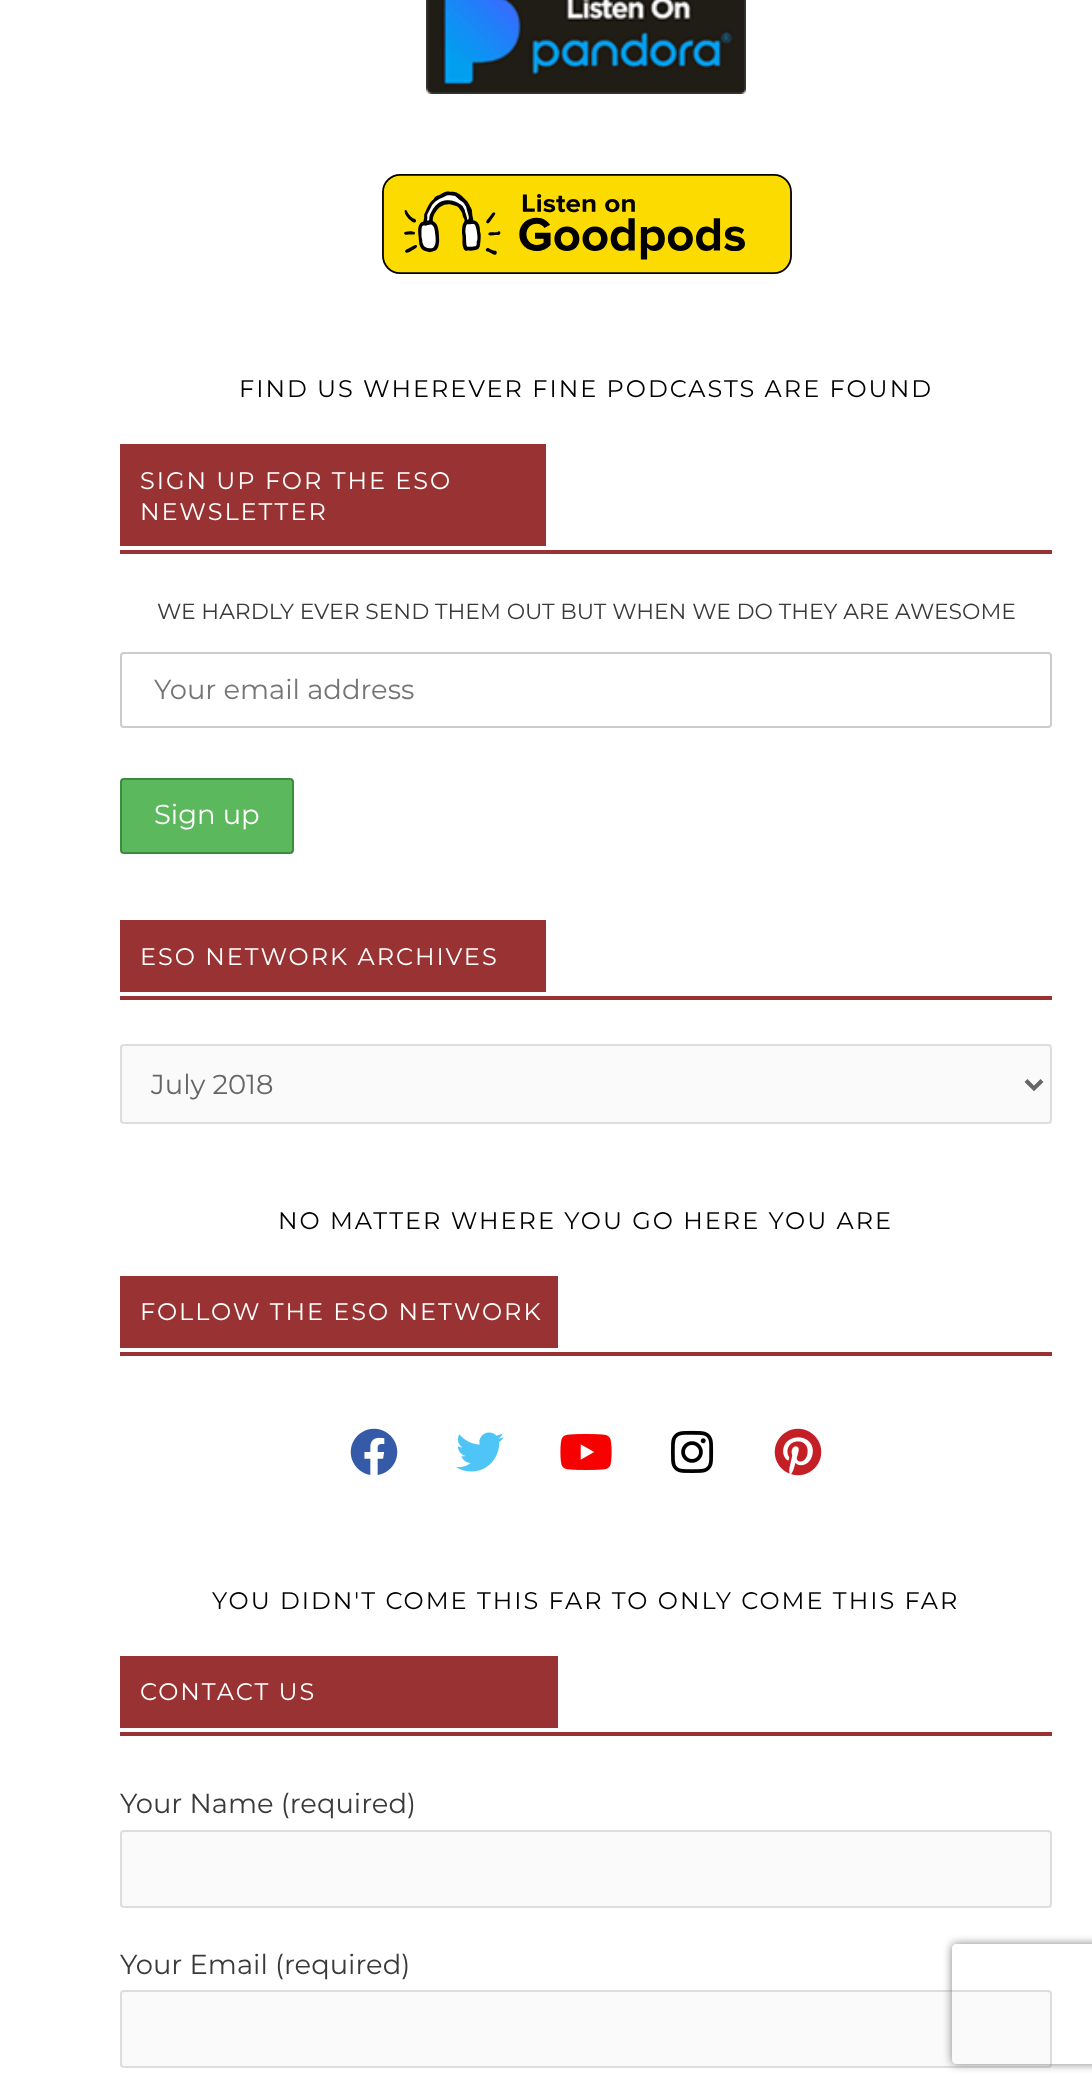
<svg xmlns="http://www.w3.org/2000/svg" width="1092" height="2092">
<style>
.a{font:24px Montserrat;letter-spacing:2px;fill:#000}
.b{font:24px Montserrat;letter-spacing:2px;fill:#fff}
.c{font:21.9px Montserrat;fill:#3a3a3a}
.d{font:27.4px Montserrat;fill:#757575}
.e{font:27.4px Montserrat;fill:#fff}
.f{font:27.4px Montserrat;fill:#666}
.g{font:27.4px Montserrat;fill:#3a3a3a}
</style>
<defs>
<clipPath id="clip1"><path d="M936 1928h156v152h-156zm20 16h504c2 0 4 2 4 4v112c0 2-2 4-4 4h-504c-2 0-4-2-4-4v-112c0-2 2-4 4-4z" clip-rule="evenodd"/></clipPath>
</defs>
<rect width="100%" height="100%" fill="#fff"/>
<image href="1.png" x="426" y="0" width="320" height="94"/>
<image href="2.png" x="382" y="174" width="410" height="100"/>
<path fill="#933" d="M120 444h426v102H120z"/>
<path fill="#933" d="M120 550h932v4H120z"/>
<rect fill="none" stroke="#ccc" stroke-width="2" x="121" y="653" width="930" height="74" rx="3"/>
<rect fill="#5cb85c" stroke="#3d8b3d" stroke-width="2" x="121" y="779" width="172" height="74" rx="3"/>
<path fill="#933" d="M120 920h426v72H120z"/>
<path fill="#933" d="M120 996h932v4H120z"/>
<rect fill="#fafafa" stroke="#ddd" stroke-width="2" x="121" y="1045" width="930" height="78" rx="3"/>
<path fill="none" stroke="#666" stroke-width="4" d="M1026 1080.5l8 8l8-8"/>
<path fill="#933" d="M120 1276h438v72H120z"/>
<path fill="#933" d="M120 1352h932v4H120z"/>
<image href="3.png" x="350" y="1428" width="48" height="47"/>
<image href="4.png" x="456" y="1432" width="48" height="40"/>
<image href="5.png" x="560" y="1434" width="52" height="36"/>
<image href="6.png" x="671" y="1430" width="43" height="43"/>
<image href="7.png" x="774" y="1428" width="48" height="48"/>
<path fill="#933" d="M120 1656h438v72H120z"/>
<path fill="#933" d="M120 1732h932v4H120z"/>
<rect fill="#fafafa" stroke="#ddd" stroke-width="2" x="121" y="1831" width="930" height="76" rx="3"/>
<rect fill="#fafafa" stroke="#ddd" stroke-width="2" x="121" y="1991" width="930" height="76" rx="3"/>
<g clip-path="url(#clip1)">
<rect fill="#808080" filter="blur(5px)" x="952" y="1944" width="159" height="120" rx="4"/>
</g>
<text class="a" x="239" y="397">FIND US WHEREVER FINE PODCASTS ARE FOUND</text>
<text class="b" x="140" y="489">SIGN UP FOR THE ESO</text>
<text class="b" x="140" y="520">NEWSLETTER</text>
<text class="c" x="157" y="619">WE HARDLY EVER SEND THEM OUT BUT WHEN WE DO THEY ARE AWESOME</text>
<text class="d" x="154" y="699">Your email address</text>
<text class="e" x="154" y="824">Sign up</text>
<text class="b" x="140" y="965">ESO NETWORK ARCHIVES</text>
<text class="f" x="151" y="1094">July 2018</text>
<text class="a" x="278" y="1229">NO MATTER WHERE YOU GO HERE YOU ARE</text>
<text class="b" x="140" y="1320">FOLLOW THE ESO NETWORK</text>
<text class="a" x="212" y="1609">YOU DIDN'T COME THIS FAR TO ONLY COME THIS FAR</text>
<text class="b" x="140" y="1700">CONTACT US</text>
<text class="g" x="120" y="1813">Your Name (required)</text>
<text class="g" x="120" y="1974">Your Email (required)</text>
</svg>
